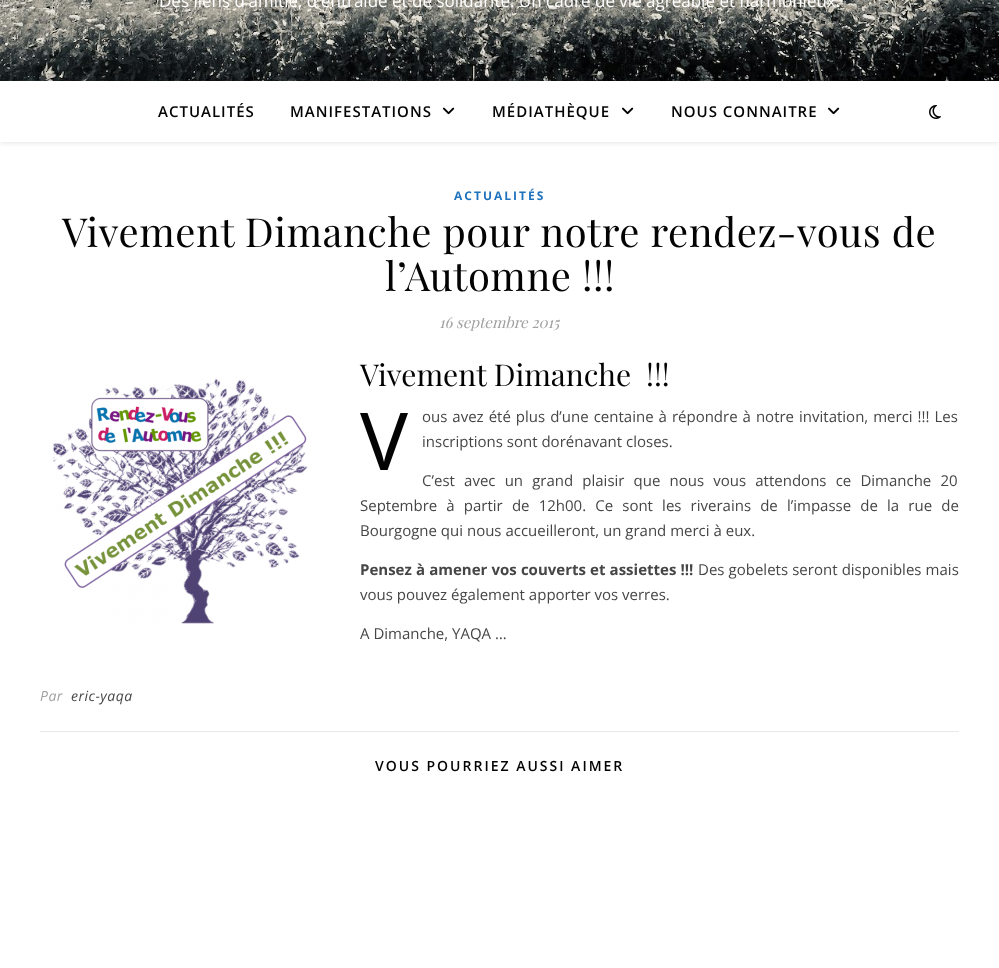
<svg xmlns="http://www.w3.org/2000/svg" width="999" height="968">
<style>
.a{font:17px Open Sans;fill:#fff}
.b{font:600 15px Open Sans;letter-spacing:1px;fill:#030303}
.c{font:bold 12px Open Sans;letter-spacing:2px;fill:#1e73be}
.d{font:40px Playfair Display;letter-spacing:0.5px;fill:#030303}
.e{font:italic 15px Playfair Display;fill:#a1a1a1}
.f{font:30px Playfair Display;fill:#030303}
.g{font:80px Noto Sans;fill:#030303}
.h{font:15px Open Sans;fill:#464646}
.i{font:bold 15px Open Sans;fill:#464646}
.j{font:italic 14px Open Sans;letter-spacing:0.5px;fill:#a1a1a1}
.k{font:italic 14px Open Sans;letter-spacing:0.5px;fill:#464646}
.l{font:600 14px Open Sans;letter-spacing:2px;fill:#030303}
</style>
<defs>
<clipPath id="clip1"><path d="M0 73h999v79h-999zm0 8h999v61h-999z" clip-rule="evenodd"/></clipPath>
</defs>
<rect width="100%" height="100%" fill="#fff"/>
<image href="1.png" x="0" y="0" width="999" height="81"/>
<g clip-path="url(#clip1)">
<path fill="#0000001a" filter="blur(2.5px)" d="M0 82h999v61H0z"/>
</g>
<image href="2.png" x="443" y="107" width="12" height="8"/>
<image href="2.png" x="622" y="107" width="12" height="8"/>
<image href="2.png" x="828" y="107" width="12" height="8"/>
<image href="3.png" x="929" y="105" width="12" height="14"/>
<image href="4.png" x="53" y="378" width="255" height="246"/>
<path fill="#e8e8e8" d="M40 731h919v1H40z"/>
<text class="a" x="159" y="7">Des liens d'amitié, d'entraide et de solidarité. Un cadre de vie agréable et harmonieux.</text>
<text class="b" x="158" y="117">ACTUALITÉS</text>
<text class="b" x="290" y="117">MANIFESTATIONS</text>
<text class="b" x="492" y="117">MÉDIATHÈQUE</text>
<text class="b" x="671" y="117">NOUS CONNAITRE</text>
<text class="c" x="454" y="200">ACTUALITÉS</text>
<text class="d" x="62" y="247">Vivement Dimanche pour notre rendez-vous de</text>
<text class="d" x="385" y="291">l’Automne !!!</text>
<text class="e" x="439" y="328">16 septembre 2015</text>
<text class="f" xml:space="preserve" x="360" y="386">Vivement Dimanche  !!!</text>
<text class="g" x="360" y="470">V</text>
<text class="h" x="422" y="422" word-spacing="1.1">ous avez été plus d’une centaine à répondre à notre invitation, merci !!! Les</text>
<text class="h" x="422" y="447">inscriptions sont dorénavant closes.</text>
<text class="h" x="422" y="486" word-spacing="5.25">C’est avec un grand plaisir que nous vous attendons ce Dimanche 20</text>
<text class="h" x="360" y="511" word-spacing="5.25">Septembre à partir de 12h00. Ce sont les riverains de l’impasse de la rue de</text>
<text class="h" x="360" y="536">Bourgogne qui nous accueilleront, un grand merci à eux.</text>
<text class="i" x="360" y="575" word-spacing="0.25">Pensez à amener vos couverts et assiettes !!!</text>
<text class="h" x="698" y="575" word-spacing="0.25">Des gobelets seront disponibles mais</text>
<text class="h" x="360" y="600">vous pouvez également apporter vos verres.</text>
<text class="h" x="360" y="639">A Dimanche, YAQA …</text>
<text class="j" x="40" y="701">Par</text>
<text class="k" x="71" y="701">eric-yaqa</text>
<text class="l" x="375" y="771">VOUS POURRIEZ AUSSI AIMER</text>
</svg>
